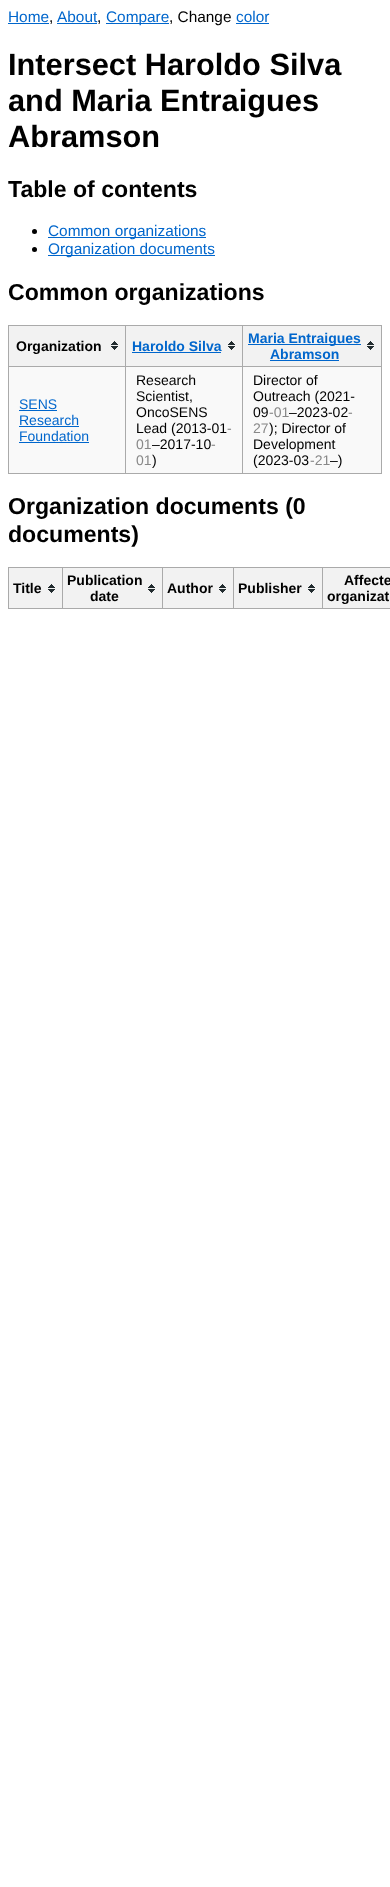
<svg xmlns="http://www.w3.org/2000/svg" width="390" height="1887">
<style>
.a{font:15.4px Liberation Sans;fill:#06c}
.b{font:15.4px Liberation Sans;fill:#000}
.c{font:bold 30.75px Liberation Sans;fill:#000}
.d{font:bold 23.1px Liberation Sans;fill:#000}
.e{font:bold 14px Liberation Sans;fill:#000}
.f{font:bold 14px Liberation Sans;fill:#06c}
.g{font:14px Liberation Sans;fill:#06c}
.h{font:14px Liberation Sans;fill:#000}
.i{font:14px Liberation Sans;fill:#888}
</style>
<rect width="100%" height="100%" fill="#fff"/>
<path fill="#06c" d="M8 23h41v1H8z"/>
<path fill="#06c" d="M57 23h40v1H57z"/>
<path fill="#06c" d="M106 23h63v1H106z"/>
<path fill="#06c" d="M236 23h33v1H236z"/>
<circle fill="#000" cx="34.5" cy="231.5" r="2.5"/>
<path fill="#06c" d="M48 237h158v1H48z"/>
<circle fill="#000" cx="34.5" cy="249.5" r="2.5"/>
<path fill="#06c" d="M48 255h167v1H48z"/>
<path fill="#f9f9f9" d="M9 367h372v106H9z"/>
<path fill="#f2f2f2" d="M9 326h116v40H9z"/>
<image href="1.png" x="111" y="341" width="7" height="9"/>
<path fill="#aaa" d="M242 325h140v1H242z"/>
<path fill="#aaa" d="M242 366h140v1H242z"/>
<path fill="#aaa" d="M381 366h1v108H381z"/>
<path fill="#aaa" d="M242 473h140v1H242z"/>
<path fill="#aaa" d="M242 366h1v108H242z"/>
<path fill="#aaa" d="M125 366h118v1H125z"/>
<path fill="#aaa" d="M242 325h1v42H242z"/>
<path fill="#aaa" d="M125 325h118v1H125z"/>
<path fill="#aaa" d="M125 473h118v1H125z"/>
<path fill="#aaa" d="M125 366h1v108H125z"/>
<path fill="#aaa" d="M8 366h118v1H8z"/>
<path fill="#aaa" d="M125 325h1v42H125z"/>
<path fill="#aaa" d="M8 325h118v1H8z"/>
<path fill="#aaa" d="M8 473h118v1H8z"/>
<path fill="#aaa" d="M8 366h1v108H8z"/>
<path fill="#aaa" d="M8 325h1v42H8z"/>
<path fill="#f2f2f2" d="M126 326h116v40H126z"/>
<image href="1.png" x="228" y="341" width="7" height="9"/>
<path fill="#06c" d="M132 352h89v1H132z"/>
<path fill="#f2f2f2" d="M243 326h138v40H243z"/>
<image href="1.png" x="367" y="341" width="7" height="9"/>
<path fill="#aaa" d="M381 325h1v42H381z"/>
<path fill="#06c" d="M248 344h113v1H248z"/>
<path fill="#06c" d="M270 360h69v1H270z"/>
<path fill="#06c" d="M19 410h38v1H19z"/>
<path fill="#06c" d="M19 426h60v1H19z"/>
<path fill="#06c" d="M19 442h70v1H19z"/>
<path fill="#f2f2f2" d="M9 568h53v40H9z"/>
<image href="1.png" x="48" y="584" width="7" height="9"/>
<path fill="#aaa" d="M322 567h68v1H322z"/>
<path fill="#aaa" d="M322 608h68v1H322z"/>
<path fill="#aaa" d="M322 567h1v42H322z"/>
<path fill="#aaa" d="M233 567h90v1H233z"/>
<path fill="#aaa" d="M233 608h90v1H233z"/>
<path fill="#aaa" d="M233 567h1v42H233z"/>
<path fill="#aaa" d="M162 567h72v1H162z"/>
<path fill="#aaa" d="M162 608h72v1H162z"/>
<path fill="#aaa" d="M162 567h1v42H162z"/>
<path fill="#aaa" d="M62 567h101v1H62z"/>
<path fill="#aaa" d="M62 608h101v1H62z"/>
<path fill="#aaa" d="M62 567h1v42H62z"/>
<path fill="#aaa" d="M8 567h55v1H8z"/>
<path fill="#aaa" d="M8 608h55v1H8z"/>
<path fill="#aaa" d="M8 567h1v42H8z"/>
<path fill="#f2f2f2" d="M63 568h99v40H63z"/>
<image href="1.png" x="148" y="584" width="7" height="9"/>
<path fill="#f2f2f2" d="M163 568h70v40H163z"/>
<image href="1.png" x="219" y="584" width="7" height="9"/>
<path fill="#f2f2f2" d="M234 568h88v40H234z"/>
<image href="1.png" x="308" y="584" width="7" height="9"/>
<path fill="#f2f2f2" d="M323 568h67v40H323z"/>
<text class="a" x="8" y="22">Home</text>
<text class="b" x="49" y="22">,</text>
<text class="a" x="57" y="22">About</text>
<text class="b" x="97" y="22">,</text>
<text class="a" x="106" y="22">Compare</text>
<text class="b" x="169" y="22">, Change</text>
<text class="a" x="236" y="22">color</text>
<text class="c" x="8" y="75">Intersect Haroldo Silva</text>
<text class="c" x="8" y="111">and Maria Entraigues</text>
<text class="c" x="8" y="147">Abramson</text>
<text class="d" x="8" y="197">Table of contents</text>
<text class="a" x="48" y="236">Common organizations</text>
<text class="a" x="48" y="254">Organization documents</text>
<text class="d" x="8" y="300">Common organizations</text>
<text class="e" x="16" y="351">Organization</text>
<text class="f" x="132" y="351">Haroldo Silva</text>
<text class="f" x="248" y="343">Maria Entraigues</text>
<text class="f" x="270" y="359">Abramson</text>
<text class="g" x="19" y="409">SENS</text>
<text class="g" x="19" y="425">Research</text>
<text class="g" x="19" y="441">Foundation</text>
<text class="h" x="136" y="385">Research</text>
<text class="h" x="136" y="401">Scientist,</text>
<text class="h" x="136" y="417">OncoSENS</text>
<text class="h" x="136" y="433">Lead (2013-01</text>
<text class="i" x="227" y="433">-</text>
<text class="i" x="136" y="449">01</text>
<text class="h" x="152" y="449">–2017-10</text>
<text class="i" x="211" y="449">-</text>
<text class="i" x="136" y="465">01</text>
<text class="h" x="152" y="465">)</text>
<text class="h" x="253" y="385">Director of</text>
<text class="h" x="253" y="401">Outreach (2021-</text>
<text class="h" x="253" y="417">09</text>
<text class="i" x="269" y="417">-01</text>
<text class="h" x="289" y="417">–2023-02</text>
<text class="i" x="348" y="417">-</text>
<text class="i" x="253" y="433">27</text>
<text class="h" x="269" y="433">); Director of</text>
<text class="h" x="253" y="449">Development</text>
<text class="h" x="253" y="465">(2023-03</text>
<text class="i" x="310" y="465">-21</text>
<text class="h" x="330" y="465">–)</text>
<text class="d" x="8" y="514">Organization documents (0</text>
<text class="d" x="8" y="542">documents)</text>
<text class="e" x="13" y="593">Title</text>
<text class="e" x="67" y="585">Publication</text>
<text class="e" x="90" y="601">date</text>
<text class="e" x="167" y="593">Author</text>
<text class="e" x="238" y="593">Publisher</text>
<text class="e" x="344" y="585">Affecte</text>
<text class="e" x="327" y="601">organizat</text>
</svg>
